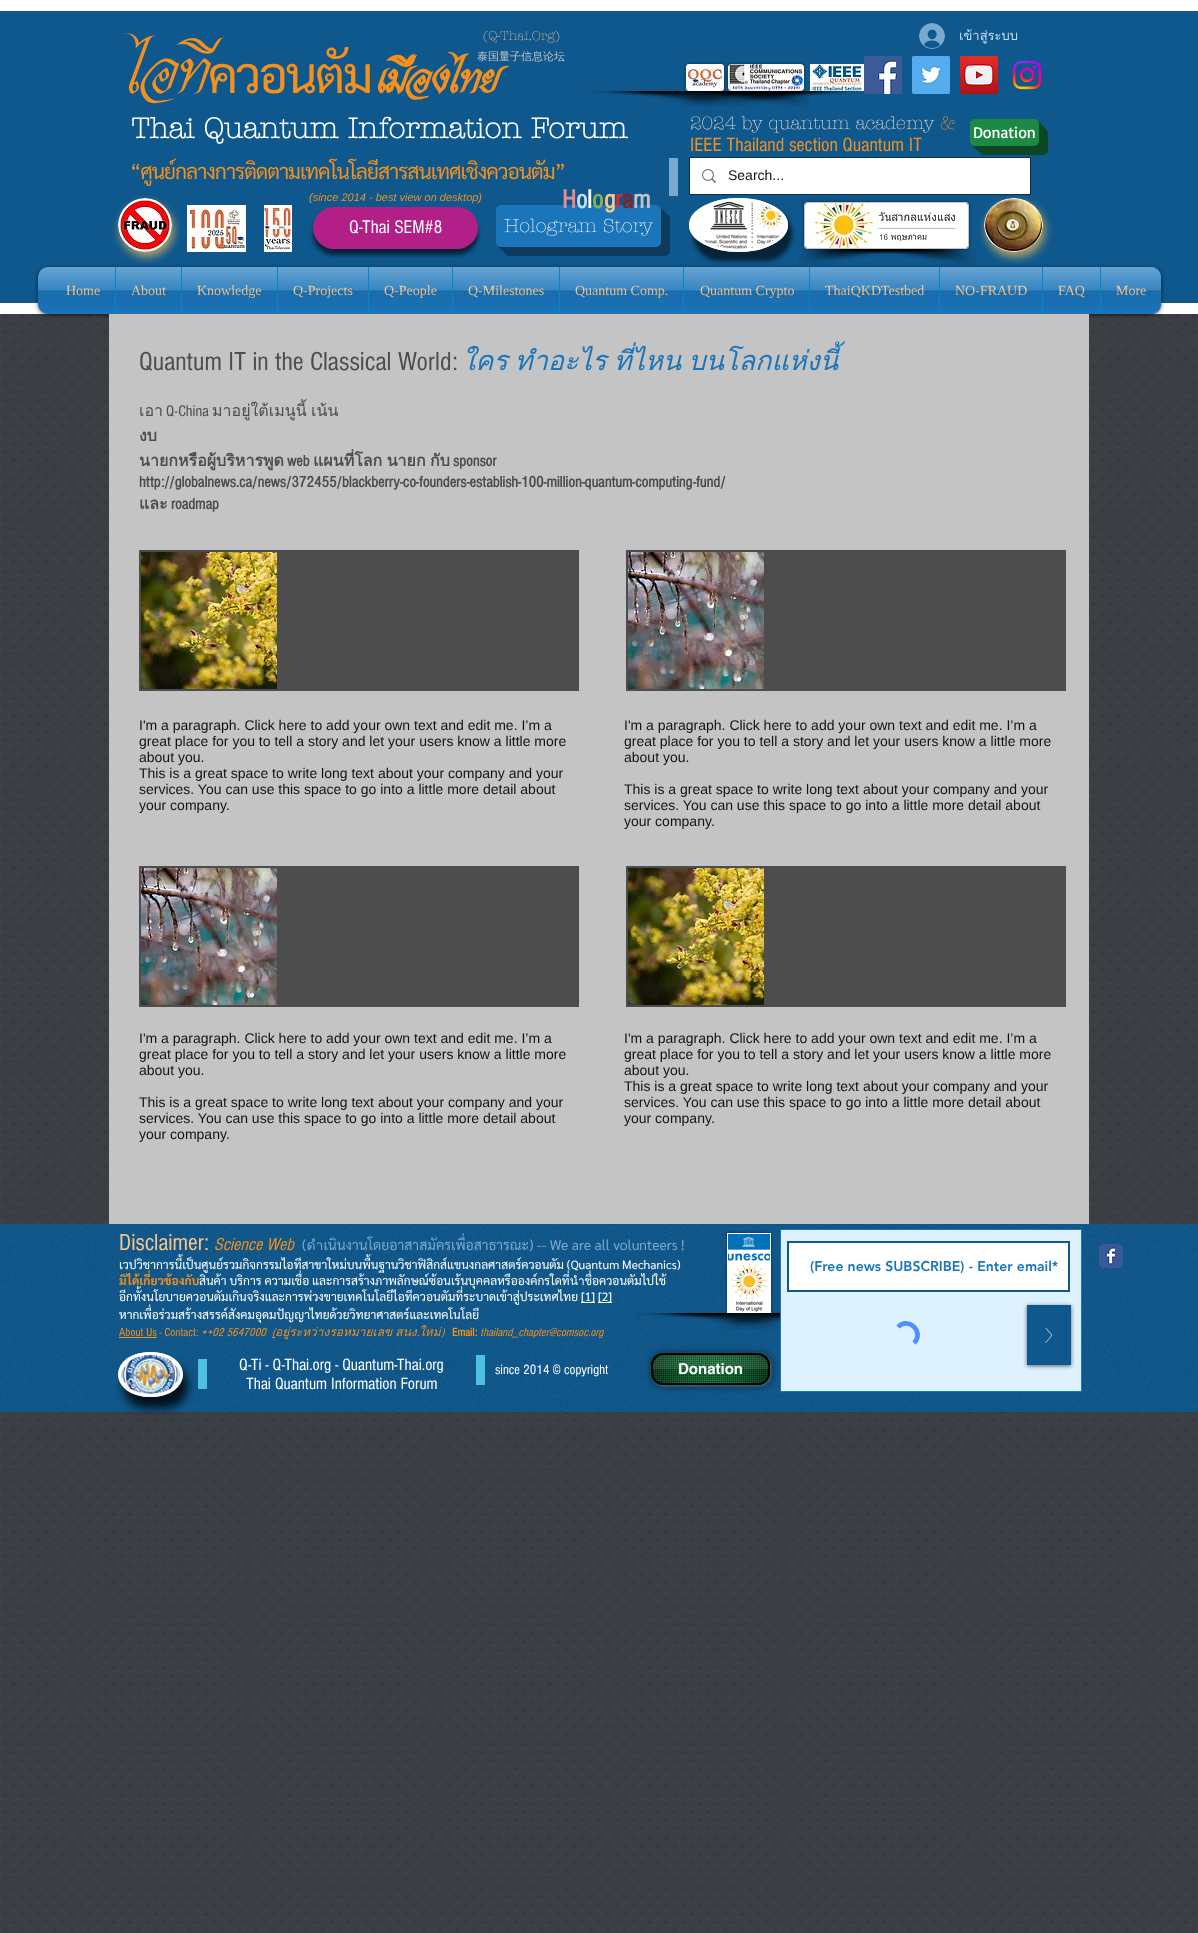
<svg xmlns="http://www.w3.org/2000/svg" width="1198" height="1933">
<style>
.a{font:italic 80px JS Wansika;letter-spacing:-4px;fill:#f4901d}
.b{font:50px Sarabun;letter-spacing:-2.5px;fill:#f4901d}
.c{font:italic bold 53px JS Wansika;letter-spacing:-2.75px;fill:#f4901d}
.d{font:300 13px 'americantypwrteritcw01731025';fill:#f8c58a}
.e{font:13px Loma;fill:#c0def4}
.f{font:500 11px WenQuanYi Zen Hei;fill:#c4c4c4}
.g{font:bold 29px 'americantypwrteritcw01731025';fill:#fff}
.h{font:300 18px 'americantypwrteritcw01731025';fill:#fde8d1}
.i{font:300 18px 'americantypwrteritcw01731025';fill:#f4901d}
.j{font:20px 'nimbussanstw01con';fill:#f4901d}
.k{font:16px Basic;fill:#fff}
.l{font:21px Sarabun;letter-spacing:-1.05px;fill:#f4901d}
.m{font:14px Liberation Sans;fill:#121212}
.n{font:italic 11px Liberation Sans;fill:#f4901d}
.o{font:bold 27px 'nimbussanstw01con';fill:#e88a8a}
.p{font:bold 27px 'nimbussanstw01con';fill:#c0def4}
.q{font:bold 27px 'nimbussanstw01con';fill:#fafaeb}
.r{font:bold 27px 'nimbussanstw01con';fill:#85b354}
.s{font:bold 27px 'nimbussanstw01con';fill:#f8c58a}
.t{font:bold 27px 'nimbussanstw01con';fill:#dd2a2a}
.u{font:bold 27px 'nimbussanstw01con';fill:#931c1c}
.v{font:bold 27px 'nimbussanstw01con';fill:#c4c4c4}
.w{font:19px 'nimbussanstw01con';fill:#fff}
.x{font:300 19px 'americantypwrteritcw01731025';fill:#fff}
.y{font:14px Liberation Serif;fill:#f8c58a}
.z{font:27px 'nimbussanstw01con';fill:#4d4d4d}
.a1{font:italic 27px Loma;fill:#1b75ba}
.b1{font:16px Loma;fill:#4d4d4d}
.c1{font:16px 'nimbussanstw01con';fill:#4d4d4d}
.d1{font:bold 16px Loma;fill:#4d4d4d}
.e1{font:bold 16px 'nimbussanstw01con';fill:#4d4d4d}
.f1{font:24px 'nimbussanstw01con';fill:#f8c58a}
.g1{font:italic 18px 'nimbussanstw01con';fill:#f4901d}
.h1{font:14px Sarabun;fill:#78aad1}
.i1{font:12px Sarabun;fill:#fff}
.j1{font:bold 12px Sarabun;fill:#f4901d}
.k1{font:12px 'nimbussanstw01con';fill:#f4901d}
.l1{font:italic 12px 'nimbussanstw01con';fill:#f4901d}
.m1{font:italic 12px Loma;fill:#f4901d}
.n1{font:bold 12px 'nimbussanstw01con';fill:#f4901d}
.o1{font:900 14px 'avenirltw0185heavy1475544';fill:#1b75ba}
.p1{font:17px 'nimbussanstw01con';fill:#fff}
.q1{font:14px 'nimbussanstw01con';fill:#fff}
.r1{font:bold 15px helvetica;fill:#fff}
</style>
<rect width="100%" height="100%" fill="#3d4146"/>
<path fill="#fff" d="M0 0h1198v11H0z"/>
<path fill="#fff" d="M0 303h1198v11H0z"/>
<path fill="#0f588d" d="M0 11h1198v292H0z"/>
<image href="1.png" x="919" y="23" width="26" height="26"/>
<rect fill="#00000080" filter="blur(1.5px)" x="686" y="64" width="38" height="27" rx="3"/>
<rect fill="#f4901d" x="686" y="64" width="38" height="27" rx="3"/>
<image href="2.png" x="686" y="64" width="38" height="27"/>
<image href="4.png" x="679" y="91" width="145" height="17"/>
<image href="3.png" x="586" y="91" width="145" height="17"/>
<rect fill="#00000080" filter="blur(1.5px)" x="728" y="64" width="76" height="27" rx="3"/>
<image href="11.png" x="722" y="91" width="144" height="17"/>
<image href="5.png" x="864" y="56" width="38" height="38"/>
<image href="6.png" x="912" y="56" width="38" height="38"/>
<image href="7.png" x="960" y="56" width="38" height="38"/>
<image href="8.png" x="1012" y="60" width="30" height="30"/>
<rect fill="#121212" x="728" y="64" width="76" height="27" rx="3"/>
<image href="9.png" x="728" y="64" width="76" height="27"/>
<image href="10.png" x="688" y="91" width="123" height="17"/>
<image href="12.png" x="810" y="64" width="54" height="27"/>
<path fill="#0e4522" d="M979 146c0 11 4 9 15 9h39c18 0 15 0 15-16c0-9 0-11-9-11v13c0 3-2 5-5 5z"/>
<path fill="#0e4522" d="M977 146c0 9 7 7 15 7h29c27 0 25 4 25-19c0-6-1-8-7-8v15c0 3-2 5-5 5z"/>
<path fill="#0e4522" d="M975 146c0 3 2 5 5 5h59c3 0 5-2 5-5v-17c0-3-2-5-5-5v17c0 3-2 5-5 5z"/>
<path fill="#0e4522" d="M973 146c1 2 3 3 5 3h59c3 0 5-2 5-5v-17c0-2-1-4-3-5v13c0 13-2 11-15 11z"/>
<path fill="#0e4522" d="M972 145c1 1 2 2 4 2h59c3 0 5-2 5-5v-17c0-2-1-3-2-4c1 1 1 2 1 3v17c0 3-2 5-5 5h-59c-1 0-2 0-3-1z"/>
<rect fill="#1c8a43" x="970" y="119" width="69" height="27" rx="5"/>
<path fill="#78aad1" d="M669 158h9v38H669z"/>
<path fill="none" stroke="#112e43" d="M689.5 157.5h341v37H689.5z"/>
<path fill="#fff" d="M690 158h340v36H690z"/>
<image href="13.png" x="702" y="169" width="14" height="14"/>
<rect fill="#d9b355c9" filter="blur(4px)" x="120" y="203" width="54" height="54" rx="27"/>
<image href="14.png" x="118" y="198" width="54" height="54"/>
<image href="15.png" x="187" y="205" width="59" height="47"/>
<image href="16.png" x="264" y="205" width="28" height="47"/>
<rect fill="#00000099" filter="blur(2px)" x="313" y="213" width="165" height="42" rx="21"/>
<rect fill="#b22087" x="313" y="207" width="165" height="42" rx="21"/>
<path fill="#0e3b5d" d="M505 247v4c0 3 2 5 5 5h155c3 0 5-2 5-5v-32c0-3-2-5-5-5h-4v28c0 3-2 5-5 5z"/>
<path fill="#0e3b5d" d="M503 247v2c0 3 2 5 5 5h155c3 0 5-2 5-5v-32c0-3-2-5-5-5h-2v30c0 3-2 5-5 5z"/>
<path fill="#0e3b5d" d="M501 247c0 3 2 5 5 5h155c3 0 5-2 5-5v-32c0-3-2-5-5-5v32c0 3-2 5-5 5z"/>
<path fill="#0e3b5d" d="M499 247c1 2 3 3 5 3h155c3 0 5-2 5-5v-32c0-2-1-4-3-5v23c0 4 2 16-5 16z"/>
<path fill="#0e3b5d" d="M498 246c1 1 2 2 4 2h155c3 0 5-2 5-5v-32c0-2-1-3-2-4c1 1 1 2 1 3v32c0 3-2 5-5 5h-155c-1 0-2 0-3-1z"/>
<rect fill="#1b75ba" x="496" y="205" width="165" height="42" rx="5"/>
<rect fill="#00000099" filter="blur(2px)" x="693" y="207" width="99" height="54" rx="27"/>
<ellipse fill="#fff" cx="738.5" cy="225" rx="49.5" ry="27"/>
<path fill="none" stroke="#fff" stroke-width="3" d="M738.5 199.5c26.5 0 48 11.5 48 25.5c0 14-21.5 25.5-48 25.5c-26.5 0-48-11.5-48-25.5c0-14 21.5-25.5 48-25.5z"/>
<image href="17.png" x="703" y="201" width="81" height="48"/>
<rect fill="#00000080" filter="blur(1.5px)" x="804" y="202" width="165" height="47" rx="3"/>
<rect fill="none" stroke="#c4c4c4" x="804.5" y="202.5" width="164" height="46" rx="2.5"/>
<image href="18.png" x="805" y="203" width="163" height="45"/>
<image href="19.png" x="797" y="249" width="144" height="17"/>
<image href="20.png" x="861" y="249" width="115" height="17"/>
<rect fill="#d9b355c9" filter="blur(4px)" x="986" y="203" width="59" height="54" rx="27"/>
<image href="21.png" x="984" y="198" width="59" height="54"/>
<image href="48.png" x="2" y="314" width="1195" height="1619"/>
<rect fill="#00000099" filter="blur(2px)" x="38" y="268" width="1123" height="47" rx="10"/>
<rect fill="#1b75ba" x="38" y="267" width="1123" height="47" rx="10"/>
<image href="22.png" x="38" y="267" width="1123" height="44"/>
<path fill="#1b75ba" d="M51 267h64v44H51z"/>
<path fill="#1b75ba" d="M116 267h65v44H116z"/>
<path fill="#0088cb" d="M115 267h1v47H115z"/>
<path fill="#1b75ba" d="M182 267h95v44H182z"/>
<path fill="#0088cb" d="M181 267h1v47H181z"/>
<path fill="#1b75ba" d="M278 267h90v44H278z"/>
<path fill="#0088cb" d="M277 267h1v47H277z"/>
<path fill="#1b75ba" d="M369 267h83v44H369z"/>
<path fill="#0088cb" d="M368 267h1v47H368z"/>
<path fill="#1b75ba" d="M453 267h106v44H453z"/>
<path fill="#0088cb" d="M452 267h1v47H452z"/>
<path fill="#1b75ba" d="M560 267h123v44H560z"/>
<path fill="#0088cb" d="M559 267h1v47H559z"/>
<path fill="#1b75ba" d="M684 267h125v44H684z"/>
<path fill="#0088cb" d="M683 267h1v47H683z"/>
<path fill="#1b75ba" d="M810 267h129v44H810z"/>
<path fill="#0088cb" d="M809 267h1v47H809z"/>
<path fill="#1b75ba" d="M940 267h102v44H940z"/>
<path fill="#0088cb" d="M939 267h1v47H939z"/>
<path fill="#1b75ba" d="M1043 267h57v44H1043z"/>
<path fill="#0088cb" d="M1042 267h1v47H1042z"/>
<path fill="#1b75ba" d="M1100 267h51c5.5 0 10 4.5 10 10v27c0 5.5-4.5 10-10 10h-51z"/>
<path fill="#0088cb" d="M1100 267h1v47H1100z"/>
<path fill="#c4c4c4" d="M109 314h980v910H109z"/>
<path fill="#4d4d4d" d="M139 550h440v141H139z"/>
<image href="35.png" x="141" y="552" width="136" height="137"/>
<path fill="#4d4d4d" d="M626 550h440v141H626z"/>
<image href="36.png" x="628" y="552" width="136" height="137"/>
<path fill="#4d4d4d" d="M139 866h440v141H139z"/>
<image href="36.png" x="141" y="868" width="136" height="137"/>
<path fill="#4d4d4d" d="M626 866h440v141H626z"/>
<image href="35.png" x="628" y="868" width="136" height="137"/>
<path fill="#0f588d" d="M0 1224h1198v188H0z"/>
<image href="37.png" x="0" y="1224" width="1198" height="188"/>
<path fill="#fff" d="M581 1302h14v1H581z"/>
<path fill="#fff" d="M598 1302h14v1H598z"/>
<path fill="#f4901d" d="M119 1337h38v1H119z"/>
<path fill="#f4901d" d="M272 1337h3v1H272z"/>
<path fill="#00000080" filter="blur(1.5px)" d="M727 1233h44v80H727z"/>
<path fill="#fff" d="M727 1233h44v80H727z"/>
<image href="38.png" x="728" y="1234" width="42" height="78"/>
<image href="40.png" x="720" y="1313" width="60" height="17"/>
<image href="39.png" x="633" y="1313" width="145" height="17"/>
<rect fill="#00000099" filter="blur(3px)" x="651" y="1353" width="121" height="34" rx="13"/>
<path fill="#def1ff" stroke="#1b75ba" d="M780.5 1229.5h301v162H780.5z"/>
<path fill="#fff" stroke="#0f588d" stroke-width="2" d="M788 1242h281v49H788z"/>
<path fill="none" stroke="#4d90fe" stroke-width="4.6" d="M898 1327c10.5-11 27 5.5 16 16"/>
<path fill="#00000099" filter="blur(2px)" d="M1027 1306h44v60H1027z"/>
<path fill="#0f588d" d="M1027 1305h44v60H1027z"/>
<image href="41.png" x="1045" y="1327" width="8" height="16"/>
<image href="42.png" x="1099" y="1244" width="24" height="24"/>
<rect fill="#000000c9" filter="blur(4px)" x="123" y="1363" width="65" height="45" rx="22.5"/>
<ellipse fill="#fff" cx="150.5" cy="1374.5" rx="32.5" ry="22.5"/>
<path fill="none" stroke="#fff" stroke-width="3" d="M150.5 1353.5c41 0 41 42 0 42c-41 0-41-42 0-42z"/>
<image href="43.png" x="121" y="1355" width="59" height="39"/>
<path fill="#4ec0e0" d="M198 1359h9v30H198z"/>
<path fill="#4ec0e0" d="M476 1355h9v30H476z"/>
<rect fill="#ffffff4d" filter="blur(1.5px)" x="652" y="1354" width="119" height="32" rx="12"/>
<rect fill="#1c8a43" x="651" y="1353" width="119" height="32" rx="12"/>
<image href="44.png" x="651" y="1353" width="119" height="32"/>
<rect fill="none" stroke="#000" stroke-width="2" x="652" y="1354" width="117" height="30" rx="11"/>
<image href="45.png" x="653" y="1355" width="46" height="28"/>
<image href="47.png" x="722" y="1355" width="46" height="28"/>
<text class="a" x="123" y="93">ไอที</text>
<text class="b" x="208" y="93">ควอนตัม</text>
<text class="c" x="377" y="93">เมืองไทย</text>
<text class="d" x="483" y="40">(Q-Thai.Org)</text>
<text class="e" x="959" y="40">เข้าสู่ระบบ</text>
<text class="f" x="477" y="60">泰国量子信息论坛</text>
<text class="g" x="131" y="138">Thai Quantum Information Forum</text>
<text class="h" x="690" y="129">2024 by quantum academy</text>
<text class="i" x="940" y="129">&amp;</text>
<text class="j" x="690" y="151">IEEE Thailand section Quantum IT</text>
<text class="k" x="973" y="138">Donation</text>
<text class="l" x="130" y="179">“ศูนย์กลางการติดตามเทคโนโลยีสารสนเทศเชิงควอนตัม”</text>
<text class="m" x="728" y="180">Search...</text>
<text class="n" x="309" y="201">(since 2014 - best view on desktop)</text>
<text class="o" x="562" y="208">H</text>
<text class="p" x="576" y="208">o</text>
<text class="q" x="587" y="208">l</text>
<text class="r" x="592" y="208">o</text>
<text class="s" x="604" y="208">g</text>
<text class="t" x="615" y="208">r</text>
<text class="u" x="622" y="208">a</text>
<text class="v" x="633" y="208">m</text>
<text class="w" x="349" y="233">Q-Thai SEM#8</text>
<text class="x" x="504" y="232">Hologram Story</text>
<text class="y" x="66" y="295">Home</text>
<image href="23.png" x="51" y="267" width="64" height="44"/>
<text class="y" x="131" y="295">About</text>
<image href="24.png" x="116" y="267" width="65" height="44"/>
<text class="y" x="197" y="295">Knowledge</text>
<image href="25.png" x="182" y="267" width="95" height="44"/>
<text class="y" x="293" y="295">Q-Projects</text>
<image href="26.png" x="278" y="267" width="90" height="44"/>
<text class="y" x="384" y="295">Q-People</text>
<image href="27.png" x="369" y="267" width="83" height="44"/>
<text class="y" x="468" y="295">Q-Milestones</text>
<image href="28.png" x="453" y="267" width="106" height="44"/>
<text class="y" x="575" y="295">Quantum Comp.</text>
<image href="29.png" x="560" y="267" width="123" height="44"/>
<text class="y" x="700" y="295">Quantum Crypto</text>
<image href="30.png" x="684" y="267" width="125" height="44"/>
<text class="y" x="825" y="295">ThaiQKDTestbed</text>
<image href="31.png" x="810" y="267" width="129" height="44"/>
<text class="y" x="955" y="295">NO-FRAUD</text>
<image href="32.png" x="940" y="267" width="102" height="44"/>
<text class="y" x="1058" y="295">FAQ</text>
<image href="33.png" x="1043" y="267" width="57" height="44"/>
<text class="y" x="1116" y="295">More</text>
<image href="34.png" x="1101" y="267" width="60" height="44"/>
<text class="z" x="139" y="370">Quantum IT in the Classical World:</text>
<text class="a1" x="462" y="370" word-spacing="-2">ใคร ทำอะไร ที่ไหน บนโลกแห่งนี้</text>
<text class="b1" x="139" y="416">เอา</text>
<text class="c1" x="166" y="416">Q-China</text>
<text class="b1" x="212" y="416" word-spacing="-1">มาอยู่ใต้เมนูนี้ เน้น</text>
<text class="d1" x="139" y="441">งบ</text>
<text class="d1" x="139" y="466">นายกหรือผู้บริหารพูด</text>
<text class="e1" x="287" y="466">web</text>
<text class="d1" x="313" y="466" word-spacing="-1">แผนที่โลก นายก กับ</text>
<text class="e1" x="453" y="466">sponsor</text>
<text class="e1" x="139" y="487">http://globalnews.ca/news/372455/blackberry-co-founders-establish-100-million-quantum-computing-fund/</text>
<text class="d1" x="139" y="509">และ</text>
<text class="e1" x="171" y="509">roadmap</text>
<text class="m" x="139" y="730">I'm a paragraph. Click here to add your own text and edit me. I’m a</text>
<text class="m" x="139" y="746">great place for you to tell a story and let your users know a little more</text>
<text class="m" x="139" y="762">about you.</text>
<text class="m" x="139" y="778">This is a great space to write long text about your company and your</text>
<text class="m" x="139" y="794">services. You can use this space to go into a little more detail about</text>
<text class="m" x="139" y="810">your company.</text>
<text class="m" x="624" y="730">I'm a paragraph. Click here to add your own text and edit me. I’m a</text>
<text class="m" x="624" y="746">great place for you to tell a story and let your users know a little more</text>
<text class="m" x="624" y="762">about you.</text>
<text class="m" x="624" y="794">This is a great space to write long text about your company and your</text>
<text class="m" x="624" y="810">services. You can use this space to go into a little more detail about</text>
<text class="m" x="624" y="826">your company.</text>
<text class="m" x="139" y="1043">I'm a paragraph. Click here to add your own text and edit me. I’m a</text>
<text class="m" x="139" y="1059">great place for you to tell a story and let your users know a little more</text>
<text class="m" x="139" y="1075">about you.</text>
<text class="m" x="139" y="1107">This is a great space to write long text about your company and your</text>
<text class="m" x="139" y="1123">services. You can use this space to go into a little more detail about</text>
<text class="m" x="139" y="1139">your company.</text>
<text class="m" x="624" y="1043">I'm a paragraph. Click here to add your own text and edit me. I’m a</text>
<text class="m" x="624" y="1059">great place for you to tell a story and let your users know a little more</text>
<text class="m" x="624" y="1075">about you.</text>
<text class="m" x="624" y="1091">This is a great space to write long text about your company and your</text>
<text class="m" x="624" y="1107">services. You can use this space to go into a little more detail about</text>
<text class="m" x="624" y="1123">your company.</text>
<text class="f1" x="119" y="1250">Disclaimer:</text>
<text class="g1" x="214" y="1250">Science Web</text>
<text class="h1" x="302" y="1250">(ดำเนินงานโดยอาสาสมัครเพื่อสาธารณะ) -- We are all volunteers !</text>
<text class="i1" x="119" y="1269">เวปวิชาการนี้เป็นศูนย์รวมกิจกรรมไอทีสาขาใหม่บนพื้นฐานวิชาฟิสิกส์แขนงกลศาสตร์ควอนตัม (Quantum Mechanics)</text>
<text class="j1" x="119" y="1285">มิได้เกี่ยวข้องกับ</text>
<text class="i1" x="199" y="1285">สินค้า บริการ ความเชื่อ และการสร้างภาพลักษณ์ซ้อนเร้นบุคคลหรือองค์กรใดที่นำชื่อควอนตัมไปใช้</text>
<text class="i1" x="119" y="1301">อีกทั้งนโยบายควอนตัมเกินจริงและการพ่วงขายเทคโนโลยีไอทีควอนตัมที่ระบาดเข้าสู่ประเทศไทย</text>
<text class="i1" x="581" y="1301">[1]</text>
<text class="i1" x="598" y="1301">[2]</text>
<text class="i1" x="119" y="1319">หากเพื่อร่วมสร้างสรรค์สังคมอุดมปัญญาไทยด้วยวิทยาศาสตร์และเทคโนโลยี</text>
<text class="k1" x="119" y="1336">About Us - Contact:</text>
<text class="l1" x="201" y="1336">++02 5647000</text>
<text class="l1" x="272" y="1336">(</text>
<text class="m1" x="275" y="1336" word-spacing="-1">อยู่ระหว่างรอหมายเลข สนง</text>
<text class="m1" x="419" y="1336">ใหม่</text>
<text class="l1" x="441" y="1336">)</text>
<text class="n1" x="452" y="1336">Email:</text>
<text class="l1" x="480" y="1336">thailand_chapter@comsoc.org</text>
<text class="l1" x="417" y="1336">.</text>
<text class="o1" x="810" y="1271">(Free news SUBSCRIBE) - Enter email*</text>
<text class="p1" x="239" y="1370">Q-Ti - Q-Thai.org - Quantum-Thai.org</text>
<text class="p1" x="246" y="1389">Thai Quantum Information Forum</text>
<text class="q1" x="495" y="1374">since 2014 © copyright</text>
<text class="r1" x="678" y="1374">Donation</text>
<image href="46.png" x="653" y="1355" width="115" height="14"/>
</svg>
